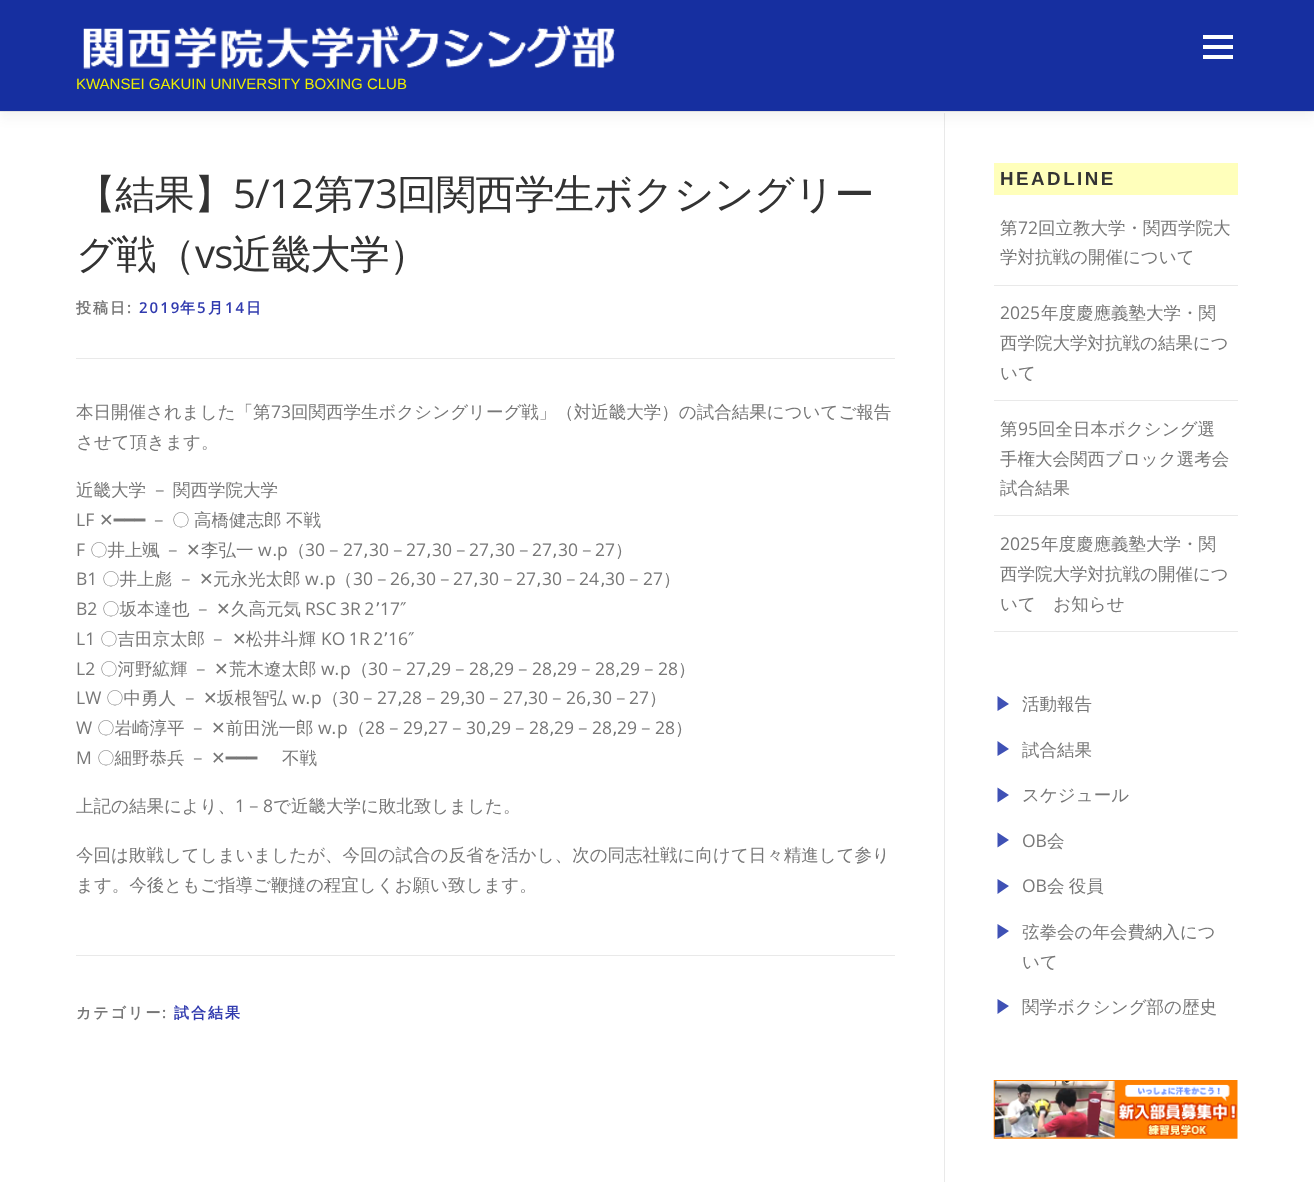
<svg xmlns="http://www.w3.org/2000/svg" width="1314" height="1182">
<style>
.a{font:15px Liberation Sans;fill:#eded00}
.b{font:500 40px WenQuanYi Zen Hei;letter-spacing:-0.75px;fill:#333}
.c{font:40px Open Sans;letter-spacing:-0.75px;fill:#333}
.d{font:bold 15px WenQuanYi Zen Hei;letter-spacing:2px;fill:#777}
.e{font:600 15px Open Sans;letter-spacing:2px;fill:#777}
.f{font:600 15px Open Sans;letter-spacing:2px;fill:#313baf}
.g{font:bold 15px WenQuanYi Zen Hei;letter-spacing:2px;fill:#313baf}
.h{font:500 17.5px WenQuanYi Zen Hei;fill:#777}
.i{font:17.5px Open Sans;fill:#777}
.j{font:17.5px DejaVu Sans;fill:#777}
.k{font:bold 18.75px Liberation Sans;letter-spacing:2.5px;fill:#333}
</style>
<rect width="100%" height="100%" fill="#fff"/>
<path fill="#e9e9e9" d="M0 111h1314v1H0z"/>
<path fill="#e9e9e9" d="M944 113h1v1069H944z"/>
<path fill="#3232320f" filter="blur(6px)" d="M0 6h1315v112H0z"/>
<path fill="#162fa0" d="M0 0h1314v111H0z"/>
<path fill="#fff" d="M1203 45h30v4H1203z"/>
<path fill="#fff" d="M1203 35h30v4H1203z"/>
<path fill="#fff" d="M1203 55h30v4H1203z"/>
<image href="1.png" x="83" y="24" width="533" height="45"/>
<path fill="#e9e9e9" d="M76 358h819v1H76z"/>
<path fill="#e9e9e9" d="M76 955h819v1H76z"/>
<path fill="#ffb" d="M994 163h244v32H994z"/>
<path fill="#e9e9e9" d="M994 285h244v1H994z"/>
<path fill="#e9e9e9" d="M994 400h244v1H994z"/>
<path fill="#e9e9e9" d="M994 515h244v1H994z"/>
<path fill="#e9e9e9" d="M994 631h244v1H994z"/>
<path fill="#3f51b5" d="M997.5 711v-15l11.5 8z"/>
<path fill="#3f51b5" d="M997.5 756v-15l11.5 8z"/>
<path fill="#3f51b5" d="M997.5 802.5v-15l11.5 7.5z"/>
<path fill="#3f51b5" d="M997.5 847.5v-15l11.5 7.5z"/>
<path fill="#3f51b5" d="M997.5 894v-15l11.5 7z"/>
<path fill="#3f51b5" d="M997.5 939v-15l11.5 7z"/>
<path fill="#3f51b5" d="M997.5 1014v-15l11.5 7z"/>
<image href="2.png" x="993" y="1080" width="245" height="59"/>
<text class="a" x="76" y="89">KWANSEI GAKUIN UNIVERSITY BOXING CLUB</text>
<text class="b" x="76" y="208">【結果】</text>
<text class="c" x="233" y="208">5/12</text>
<text class="b" x="314" y="208">第</text>
<text class="c" x="353" y="208">73</text>
<text class="b" x="397" y="208">回関西学生ボクシングリー</text>
<text class="b" x="76" y="268">グ戦（</text>
<text class="c" x="195" y="268">vs</text>
<text class="b" x="232" y="268">近畿大学）</text>
<text class="d" x="76" y="313">投稿日</text>
<text class="e" x="127" y="313">:</text>
<text class="f" x="139" y="313">2019</text>
<text class="g" x="180" y="313">年</text>
<text class="f" x="197" y="313">5</text>
<text class="g" x="208" y="313">月</text>
<text class="f" x="225" y="313">14</text>
<text class="g" x="246" y="313">日</text>
<text class="h" x="76" y="418">本日開催されました「第</text>
<text class="i" x="271" y="418">73</text>
<text class="h" x="291" y="418">回関西学生ボクシングリーグ戦」（対近畿大学）の試合結果についてご報告</text>
<text class="h" x="76" y="448">させて頂きます。</text>
<text class="h" x="76" y="496">近畿大学</text>
<text class="h" x="151" y="496">－</text>
<text class="h" x="173" y="496">関西学院大学</text>
<text class="i" x="76" y="526">LF</text>
<text class="j" x="99" y="526">✕━━━</text>
<text class="h" x="150" y="526">－</text>
<text class="h" x="172" y="526">〇</text>
<text class="h" x="194" y="526">高橋健志郎</text>
<text class="h" x="286" y="526">不戦</text>
<text class="i" x="76" y="556">F</text>
<text class="h" x="90" y="556">〇井上颯</text>
<text class="h" x="164" y="556">－</text>
<text class="j" x="186" y="556">✕</text>
<text class="h" x="201" y="556">李弘一</text>
<text class="i" x="258" y="556">w</text>
<text class="i" x="277" y="556">p</text>
<text class="h" x="288" y="556">（</text>
<text class="i" x="305" y="556">30</text>
<text class="h" x="325" y="556">－</text>
<text class="i" x="343" y="556">27</text>
<text class="i" x="369" y="556">30</text>
<text class="h" x="389" y="556">－</text>
<text class="i" x="406" y="556">27</text>
<text class="i" x="432" y="556">30</text>
<text class="h" x="452" y="556">－</text>
<text class="i" x="469" y="556">27</text>
<text class="i" x="495" y="556">30</text>
<text class="h" x="515" y="556">－</text>
<text class="i" x="532" y="556">27</text>
<text class="i" x="558" y="556">30</text>
<text class="h" x="578" y="556">－</text>
<text class="i" x="595" y="556">27</text>
<text class="h" x="615" y="556">）</text>
<text class="j" x="272" y="556">.</text>
<text class="j" x="363" y="556">,</text>
<text class="j" x="426" y="556">,</text>
<text class="j" x="489" y="556">,</text>
<text class="j" x="552" y="556">,</text>
<text class="i" x="76" y="585">B1</text>
<text class="h" x="102" y="585">〇井上彪</text>
<text class="h" x="177" y="585">－</text>
<text class="j" x="199" y="585">✕</text>
<text class="h" x="213" y="585">元永光太郎</text>
<text class="i" x="305" y="585">w</text>
<text class="i" x="325" y="585">p</text>
<text class="h" x="335" y="585">（</text>
<text class="i" x="353" y="585">30</text>
<text class="h" x="373" y="585">－</text>
<text class="i" x="390" y="585">26</text>
<text class="i" x="416" y="585">30</text>
<text class="h" x="436" y="585">－</text>
<text class="i" x="453" y="585">27</text>
<text class="i" x="479" y="585">30</text>
<text class="h" x="499" y="585">－</text>
<text class="i" x="516" y="585">27</text>
<text class="i" x="542" y="585">30</text>
<text class="h" x="562" y="585">－</text>
<text class="i" x="579" y="585">24</text>
<text class="i" x="605" y="585">30</text>
<text class="h" x="625" y="585">－</text>
<text class="i" x="643" y="585">27</text>
<text class="h" x="663" y="585">）</text>
<text class="j" x="319" y="585">.</text>
<text class="j" x="410" y="585">,</text>
<text class="j" x="473" y="585">,</text>
<text class="j" x="536" y="585">,</text>
<text class="j" x="600" y="585">,</text>
<text class="i" x="76" y="615">B2</text>
<text class="h" x="102" y="615">〇坂本達也</text>
<text class="h" x="194" y="615">－</text>
<text class="j" x="216" y="615">✕</text>
<text class="h" x="231" y="615">久高元気</text>
<text class="i" x="305" y="615" word-spacing="-1">RSC 3R 2</text>
<text class="j" x="375" y="615">’</text>
<text class="i" x="380" y="615">17</text>
<text class="j" x="400" y="615">″</text>
<text class="i" x="76" y="645">L1</text>
<text class="h" x="100" y="645">〇吉田京太郎</text>
<text class="h" x="209" y="645">－</text>
<text class="j" x="232" y="645">✕</text>
<text class="h" x="246" y="645">松井斗輝</text>
<text class="i" x="321" y="645" word-spacing="-1">KO 1R 2</text>
<text class="j" x="383" y="645">’</text>
<text class="i" x="388" y="645">16</text>
<text class="j" x="408" y="645">″</text>
<text class="i" x="76" y="675">L2</text>
<text class="h" x="100" y="675">〇河野絋輝</text>
<text class="h" x="192" y="675">－</text>
<text class="j" x="214" y="675">✕</text>
<text class="h" x="229" y="675">荒木遼太郎</text>
<text class="i" x="321" y="675">w</text>
<text class="i" x="340" y="675">p</text>
<text class="h" x="351" y="675">（</text>
<text class="i" x="368" y="675">30</text>
<text class="h" x="388" y="675">－</text>
<text class="i" x="406" y="675">27</text>
<text class="i" x="431" y="675">29</text>
<text class="h" x="451" y="675">－</text>
<text class="i" x="469" y="675">28</text>
<text class="i" x="494" y="675">29</text>
<text class="h" x="514" y="675">－</text>
<text class="i" x="532" y="675">28</text>
<text class="i" x="557" y="675">29</text>
<text class="h" x="577" y="675">－</text>
<text class="i" x="595" y="675">28</text>
<text class="i" x="620" y="675">29</text>
<text class="h" x="640" y="675">－</text>
<text class="i" x="658" y="675">28</text>
<text class="h" x="678" y="675">）</text>
<text class="j" x="334" y="675">.</text>
<text class="j" x="426" y="675">,</text>
<text class="j" x="489" y="675">,</text>
<text class="j" x="552" y="675">,</text>
<text class="j" x="615" y="675">,</text>
<text class="i" x="76" y="704">LW</text>
<text class="h" x="106" y="704">〇中勇人</text>
<text class="h" x="181" y="704">－</text>
<text class="j" x="203" y="704">✕</text>
<text class="h" x="217" y="704">坂根智弘</text>
<text class="i" x="292" y="704">w</text>
<text class="i" x="311" y="704">p</text>
<text class="h" x="322" y="704">（</text>
<text class="i" x="339" y="704">30</text>
<text class="h" x="359" y="704">－</text>
<text class="i" x="377" y="704">27</text>
<text class="i" x="402" y="704">28</text>
<text class="h" x="422" y="704">－</text>
<text class="i" x="440" y="704">29</text>
<text class="i" x="465" y="704">30</text>
<text class="h" x="485" y="704">－</text>
<text class="i" x="503" y="704">27</text>
<text class="i" x="528" y="704">30</text>
<text class="h" x="548" y="704">－</text>
<text class="i" x="566" y="704">26</text>
<text class="i" x="592" y="704">30</text>
<text class="h" x="612" y="704">－</text>
<text class="i" x="629" y="704">27</text>
<text class="h" x="649" y="704">）</text>
<text class="j" x="305" y="704">.</text>
<text class="j" x="397" y="704">,</text>
<text class="j" x="460" y="704">,</text>
<text class="j" x="523" y="704">,</text>
<text class="j" x="586" y="704">,</text>
<text class="i" x="76" y="734">W</text>
<text class="h" x="97" y="734">〇岩崎淳平</text>
<text class="h" x="189" y="734">－</text>
<text class="j" x="211" y="734">✕</text>
<text class="h" x="226" y="734">前田洸一郎</text>
<text class="i" x="318" y="734">w</text>
<text class="i" x="337" y="734">p</text>
<text class="h" x="348" y="734">（</text>
<text class="i" x="365" y="734">28</text>
<text class="h" x="385" y="734">－</text>
<text class="i" x="403" y="734">29</text>
<text class="i" x="428" y="734">27</text>
<text class="h" x="448" y="734">－</text>
<text class="i" x="466" y="734">30</text>
<text class="i" x="491" y="734">29</text>
<text class="h" x="511" y="734">－</text>
<text class="i" x="529" y="734">28</text>
<text class="i" x="554" y="734">29</text>
<text class="h" x="574" y="734">－</text>
<text class="i" x="592" y="734">28</text>
<text class="i" x="617" y="734">29</text>
<text class="h" x="637" y="734">－</text>
<text class="i" x="655" y="734">28</text>
<text class="h" x="675" y="734">）</text>
<text class="j" x="331" y="734">.</text>
<text class="j" x="423" y="734">,</text>
<text class="j" x="486" y="734">,</text>
<text class="j" x="549" y="734">,</text>
<text class="j" x="612" y="734">,</text>
<text class="i" x="76" y="764">M</text>
<text class="h" x="97" y="764">〇細野恭兵</text>
<text class="h" x="189" y="764">－</text>
<text class="j" x="211" y="764">✕━━━</text>
<text class="h" x="282" y="764">不戦</text>
<text class="h" x="76" y="812">上記の結果により、</text>
<text class="i" x="235" y="812">1</text>
<text class="h" x="245" y="812">－</text>
<text class="i" x="263" y="812">8</text>
<text class="h" x="273" y="812">で近畿大学に敗北致しました。</text>
<text class="h" x="76" y="861">今回は敗戦してしまいましたが、今回の試合の反省を活かし、次の同志社戦に向けて日々精進して参り</text>
<text class="h" x="76" y="891">ます。今後ともご指導ご鞭撻の程宜しくお願い致します。</text>
<text class="d" x="76" y="1018">カテゴリー</text>
<text class="e" x="162" y="1018">:</text>
<text class="g" x="174" y="1018">試合結果</text>
<text class="k" x="1000" y="185">HEADLINE</text>
<text class="h" x="1000" y="234">第</text>
<text class="i" x="1018" y="234">72</text>
<text class="h" x="1038" y="234">回立教大学・関西学院大</text>
<text class="h" x="1000" y="263">学対抗戦の開催について</text>
<text class="i" x="1000" y="319">2025</text>
<text class="h" x="1041" y="319">年度慶應義塾大学・関</text>
<text class="h" x="1000" y="349">西学院大学対抗戦の結果につ</text>
<text class="h" x="1000" y="379">いて</text>
<text class="h" x="1000" y="435">第</text>
<text class="i" x="1018" y="435">95</text>
<text class="h" x="1038" y="435">回全日本ボクシング選</text>
<text class="h" x="1000" y="465">手権大会関西ブロック選考会</text>
<text class="h" x="1000" y="494">試合結果</text>
<text class="i" x="1000" y="550">2025</text>
<text class="h" x="1041" y="550">年度慶應義塾大学・関</text>
<text class="h" x="1000" y="580">西学院大学対抗戦の開催につ</text>
<text class="h" x="1000" y="610">いて　お知らせ</text>
<text class="h" x="1022" y="710">活動報告</text>
<text class="h" x="1022" y="756">試合結果</text>
<text class="h" x="1022" y="801">スケジュール</text>
<text class="i" x="1022" y="847">OB</text>
<text class="h" x="1047" y="847">会</text>
<text class="i" x="1022" y="892">OB</text>
<text class="h" x="1047" y="892" word-spacing="-1">会 役員</text>
<text class="h" x="1022" y="938">弦拳会の年会費納入につ</text>
<text class="h" x="1022" y="968">いて</text>
<text class="h" x="1022" y="1013">関学ボクシング部の歴史</text>
</svg>
